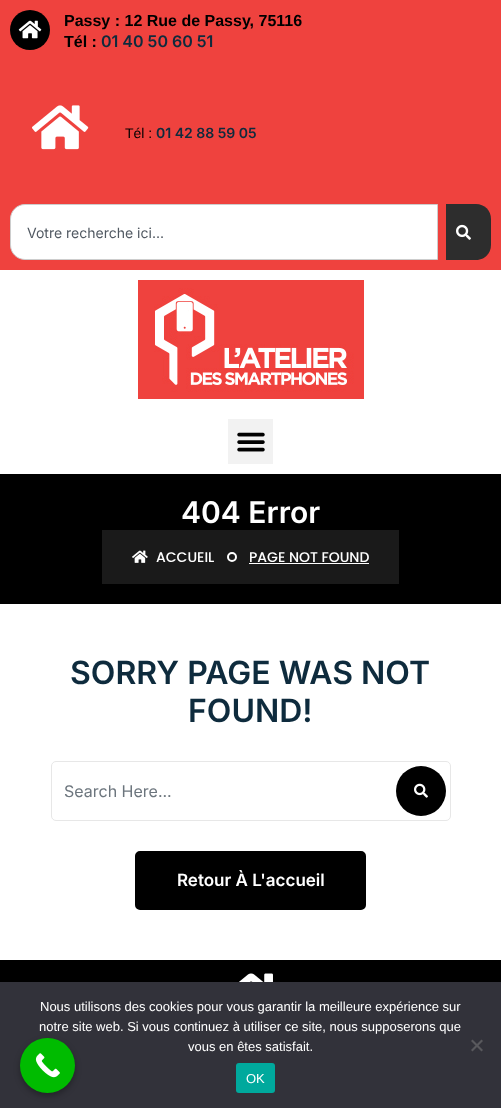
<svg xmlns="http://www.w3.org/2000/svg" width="501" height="1108">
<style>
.a{font:bold 16px Liberation Sans;fill:#000}
.b{font:600 16px Inter;fill:#0e2b3d}
.c{font:14px Liberation Sans;fill:#000}
.d{font:600 14px Inter;fill:#0e2b3d}
.e{font:14px Inter;fill:#515962}
.f{font:600 30px Inter;fill:#fff}
.g{font:500 14px Poppins;fill:#fff}
.h{font:600 32px Inter;fill:#0e2b3d}
.i{font:16px Inter;fill:#6c757d}
.j{font:600 17px Inter;fill:#fff}
.k{font:13px Liberation Sans;fill:#fff}
</style>
<rect width="100%" height="100%" fill="#fff"/>
<path fill="#ef423e" d="M0 0h501v270H0z"/>
<circle fill="#000" cx="30" cy="30" r="20"/>
<image href="1.png" x="18" y="20" width="24" height="19"/>
<image href="2.png" x="32" y="105" width="57" height="45"/>
<path fill="#fff" stroke="#cdcdcd" d="M25 204.5h412.5v55h-412.5c-8 0-14.5-6.5-14.5-14.5v-26c0-8 6.5-14.5 14.5-14.5z"/>
<path fill="#2d2d2d" d="M446 204h30c8.5 0 15 6.5 15 15v26c0 8.5-6.5 15-15 15h-30z"/>
<image href="3.png" x="456" y="224" width="15" height="16"/>
<image href="4.png" x="138" y="280" width="226" height="119"/>
<path fill="#f2f2f2" d="M228 419h45v45H228z"/>
<image href="5.png" x="237" y="432" width="28" height="20"/>
<path fill="#000" d="M0 474h501v130H0z"/>
<path fill="#1a1a1a" d="M102 530h297v54H102z"/>
<image href="6.png" x="132" y="550" width="16" height="13"/>
<circle fill="none" stroke="#fff" stroke-width="2" cx="232" cy="557" r="4"/>
<path fill="#fff" d="M249 563h120v1H249z"/>
<rect fill="none" stroke="#e7e7e7" x="51.5" y="761.5" width="399" height="59" rx="4.5"/>
<circle fill="#000" cx="421" cy="791" r="25"/>
<image href="7.png" x="414" y="783" width="14" height="15"/>
<rect fill="#000" stroke="#000" stroke-width="2" x="136" y="852" width="229" height="57" rx="4"/>
<path fill="#000" d="M0 960h501v22H0z"/>
<image href="8.png" x="239" y="973" width="34" height="9"/>
<path fill="#32323a" d="M0 982h501v126H0z"/>
<path fill="#59595d" d="M481.5 1039.5l1.5 1.5l-10.5 10.5l-1.5-1.5z"/>
<path fill="#59595d" d="M471 1041l1.5-1.5l10.5 10.5l-1.5 1.5z"/>
<rect fill="#00a99d" x="236" y="1063" width="39" height="30" rx="3"/>
<rect fill="#0000004d" filter="blur(3px)" x="20" y="1041" width="55" height="55" rx="27.5"/>
<circle fill="#0b0" cx="47.5" cy="1065.5" r="27.5"/>
<image href="9.png" x="35" y="1053" width="25" height="25"/>
<text class="a" x="64" y="26">Passy : 12 Rue de Passy, 75116</text>
<text class="a" x="64" y="47">Tél :</text>
<text class="b" x="101" y="47">01 40 50 60 51</text>
<text class="c" x="125" y="138">Tél :</text>
<text class="d" x="156" y="138">01 42 88 59 05</text>
<text class="e" x="27" y="238">Votre recherche ici...</text>
<text class="f" x="181" y="523">404 Error</text>
<text class="g" x="156" y="562">ACCUEIL</text>
<text class="g" x="249" y="562">PAGE NOT FOUND</text>
<text class="h" x="70" y="684">SORRY PAGE WAS NOT</text>
<text class="h" x="188" y="722">FOUND!</text>
<text class="i" x="64" y="797">Search Here...</text>
<text class="j" x="177" y="886">Retour À L'accueil</text>
<text class="k" x="40" y="1011">Nous utilisons des cookies pour vous garantir la meilleure expérience sur</text>
<text class="k" x="39" y="1031">notre site web. Si vous continuez à utiliser ce site, nous supposerons que</text>
<text class="k" x="188" y="1051">vous en êtes satisfait.</text>
<text class="k" x="246" y="1083">OK</text>
</svg>
